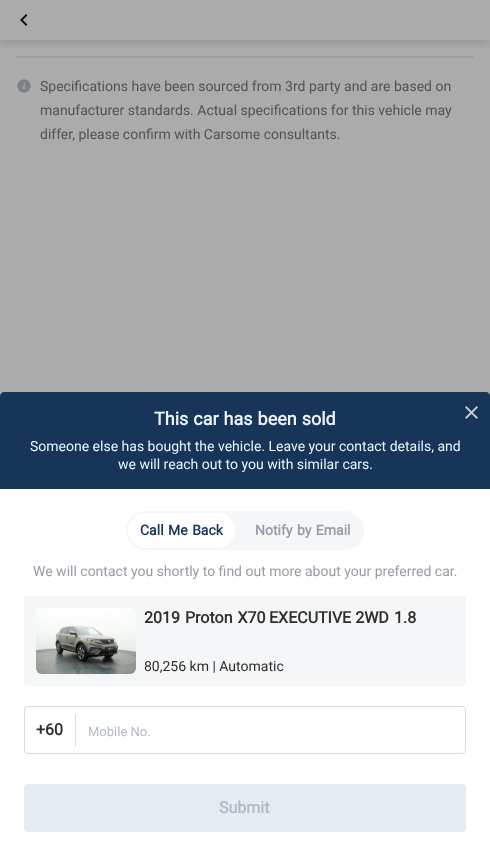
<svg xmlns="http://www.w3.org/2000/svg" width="490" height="852">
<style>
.a{font:14px Roboto;fill:#515356}
.b{font:bold 18px Roboto;fill:#ecf3f9}
.c{font:14px Roboto;fill:#ecf3f9}
.d{font:bold 14px Roboto;fill:#173559}
.e{font:bold 14px Roboto;fill:#959ca4}
.f{font:14px Roboto;fill:#959ca4}
.g{font:bold 16px Roboto;fill:#2e2e2e}
.h{font:14px Roboto;fill:#2e2e2e}
.i{font:13px Roboto;fill:#b3bac4}
.j{font:bold 16px Roboto;fill:#b3bac4}
</style>
<defs>
<clipPath id="clip1"><path d="M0 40h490v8H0z"/></clipPath>
</defs>
<rect width="100%" height="100%" fill="#ababab"/>
<rect fill="#9c9fa4" x="16" y="56" width="458" height="2" rx="1"/>
<g clip-path="url(#clip1)">
<path fill="#1212121f" filter="blur(4px)" d="M0 4h490v40H0z"/>
</g>
<image href="1.png" x="20" y="14" width="8" height="12"/>
<image href="2.png" x="17" y="79" width="14" height="14"/>
<path fill="#173559" d="M4 392h482c2 0 4 2 4 4v93h-490v-93c0-2 2-4 4-4z"/>
<image href="3.png" x="465" y="406" width="13" height="13"/>
<path fill="#fff" d="M0 489h490v363H0z"/>
<rect fill="#f4f6f8" x="126" y="511" width="238" height="39" rx="19.5"/>
<rect fill="#fff" x="128" y="513" width="107" height="35" rx="17.5"/>
<rect fill="#f4f6f8" x="24" y="596" width="442" height="90" rx="4"/>
<image href="4.png" x="36" y="608" width="100" height="66"/>
<rect fill="none" stroke="#d5dce5" x="24.5" y="706.5" width="441" height="47" rx="3.5"/>
<path fill="#d5dce6" d="M75 714h1v32H75z"/>
<rect fill="#e6ebf2" x="24" y="784" width="442" height="48" rx="4"/>
<text class="a" x="40" y="91">Specifications have been sourced from 3rd party and are based on</text>
<text class="a" x="40" y="115">manufacturer standards. Actual specifications for this vehicle may</text>
<text class="a" x="40" y="139">differ, please confirm with Carsome consultants.</text>
<text class="b" x="154" y="425" word-spacing="0.5">This car has been sold</text>
<text class="c" x="30" y="451">Someone else has bought the vehicle. Leave your contact details, and</text>
<text class="c" x="118" y="469">we will reach out to you with similar cars.</text>
<text class="d" x="140" y="535" word-spacing="1">Call Me Back</text>
<text class="e" x="255" y="535" word-spacing="1">Notify by Email</text>
<text class="f" x="33" y="576">We will contact you shortly to find out more about your preferred car.</text>
<text class="g" x="144" y="623" word-spacing="1">2019 Proton X70</text>
<text class="g" x="269" y="623">EXECUTIVE 2WD</text>
<text class="g" x="394" y="623">1.8</text>
<text class="h" x="144" y="671">80,256 km | Automatic</text>
<text class="g" x="36" y="735">+60</text>
<text class="i" x="88" y="736">Mobile No.</text>
<text class="j" x="219" y="813">Submit</text>
</svg>
